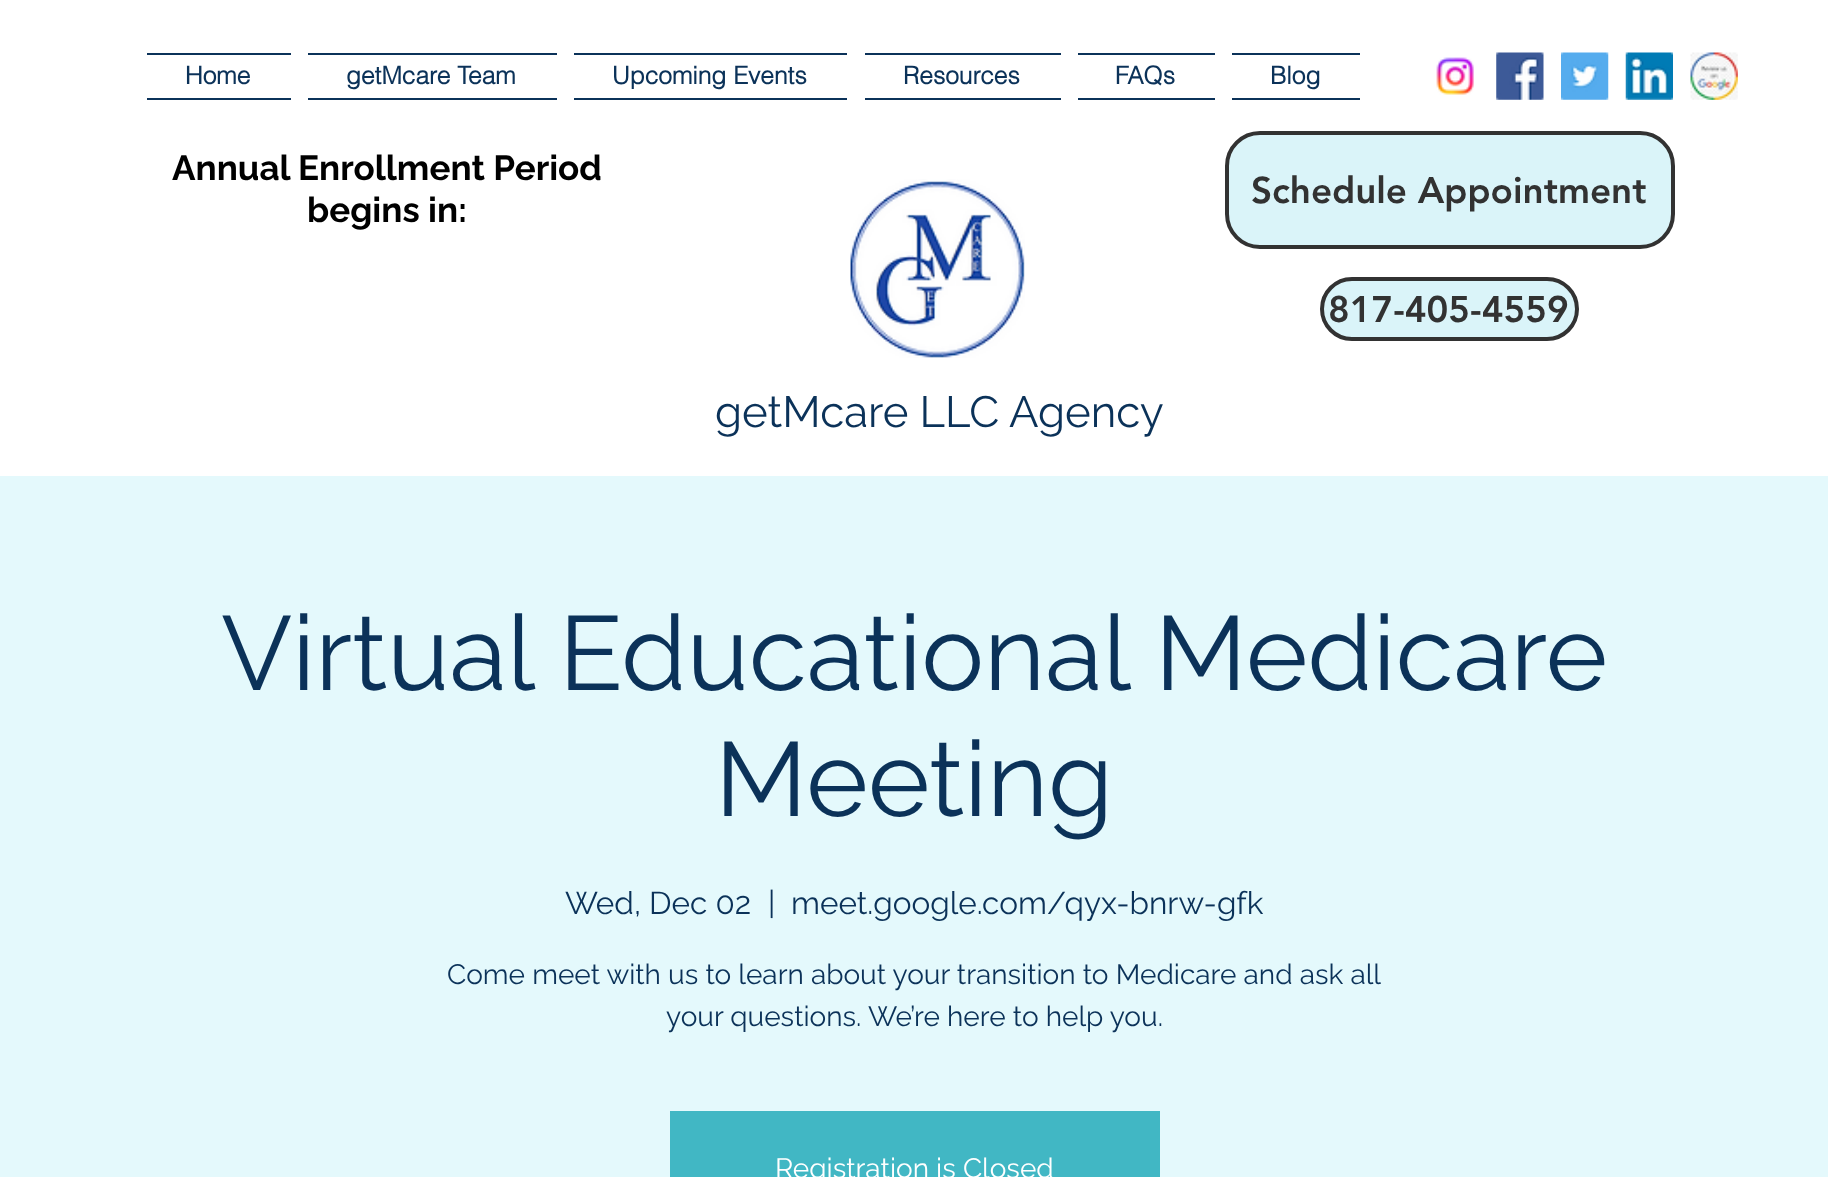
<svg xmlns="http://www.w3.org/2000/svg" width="1828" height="1177">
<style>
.a{font:bold 24.5px helvetica;fill:#0b3259}
.b{font:bold 35px Raleway;fill:#000}
.c{font:900 36.75px 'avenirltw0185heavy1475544';fill:#323232}
.d{font:43.75px Raleway;fill:#0b3259}
.e{font:105px Raleway;fill:#0b3259}
.f{font:31.5px Raleway;fill:#0b3259}
.g{font:28px Raleway;fill:#0b3259}
.h{font:28px Raleway;fill:#fff}
</style>
<rect width="100%" height="100%" fill="#fff"/>
<path fill="#0b3259" d="M147 53h144v2H147z"/>
<path fill="#0b3259" d="M147 98h144v2H147z"/>
<path fill="#0b3259" d="M308 53h249v2H308z"/>
<path fill="#0b3259" d="M308 98h249v2H308z"/>
<path fill="#0b3259" d="M574 53h273v2H574z"/>
<path fill="#0b3259" d="M574 98h273v2H574z"/>
<path fill="#0b3259" d="M865 53h196v2H865z"/>
<path fill="#0b3259" d="M865 98h196v2H865z"/>
<path fill="#0b3259" d="M1078 53h137v2H1078z"/>
<path fill="#0b3259" d="M1078 98h137v2H1078z"/>
<path fill="#0b3259" d="M1232 53h128v2H1232z"/>
<path fill="#0b3259" d="M1232 98h128v2H1232z"/>
<image href="1.png" x="1436" y="57" width="38" height="38"/>
<image href="2.png" x="1496" y="52" width="48" height="48"/>
<image href="3.png" x="1561" y="52" width="48" height="48"/>
<image href="4.png" x="1625" y="52" width="48" height="48"/>
<image href="5.png" x="1690" y="52" width="48" height="48"/>
<image href="6.png" x="850" y="179" width="175" height="179"/>
<rect fill="#daf4f9" stroke="#323232" stroke-width="4" x="1227" y="133" width="446" height="114" rx="33"/>
<rect fill="#daf4f9" stroke="#323232" stroke-width="4" x="1322" y="279" width="255" height="60" rx="30"/>
<path fill="#e4f9fc" d="M0 476h1828v701H0z"/>
<path fill="#41b7c4" d="M670 1111h490v66H670z"/>
<text class="a" x="185" y="84">Home</text>
<text class="a" x="346" y="84">getMcare Team</text>
<text class="a" x="612" y="84">Upcoming Events</text>
<text class="a" x="903" y="84">Resources</text>
<text class="a" x="1115" y="84">FAQs</text>
<text class="a" x="1270" y="84">Blog</text>
<text class="b" x="172" y="180">Annual Enrollment Period</text>
<text class="b" x="307" y="222">begins in:</text>
<text class="c" x="1251" y="203">Schedule Appointment</text>
<text class="c" x="1328" y="322">817-405-4559</text>
<text class="d" x="715" y="427">getMcare LLC Agency</text>
<text class="e" x="221" y="690">Virtual Educational Medicare</text>
<text class="e" x="715" y="816">Meeting</text>
<text class="f" x="565" y="914">Wed, Dec 02</text>
<text class="f" x="768" y="914">|</text>
<text class="f" x="791" y="914">meet.google.com/qyx-bnrw-gfk</text>
<text class="g" x="447" y="984">Come meet with us to learn about your transition to Medicare and ask all</text>
<text class="g" x="666" y="1026">your questions.</text>
<text class="g" x="868" y="1026">We’re here to help you.</text>
<text class="h" x="775" y="1178">Registration is Closed</text>
</svg>
